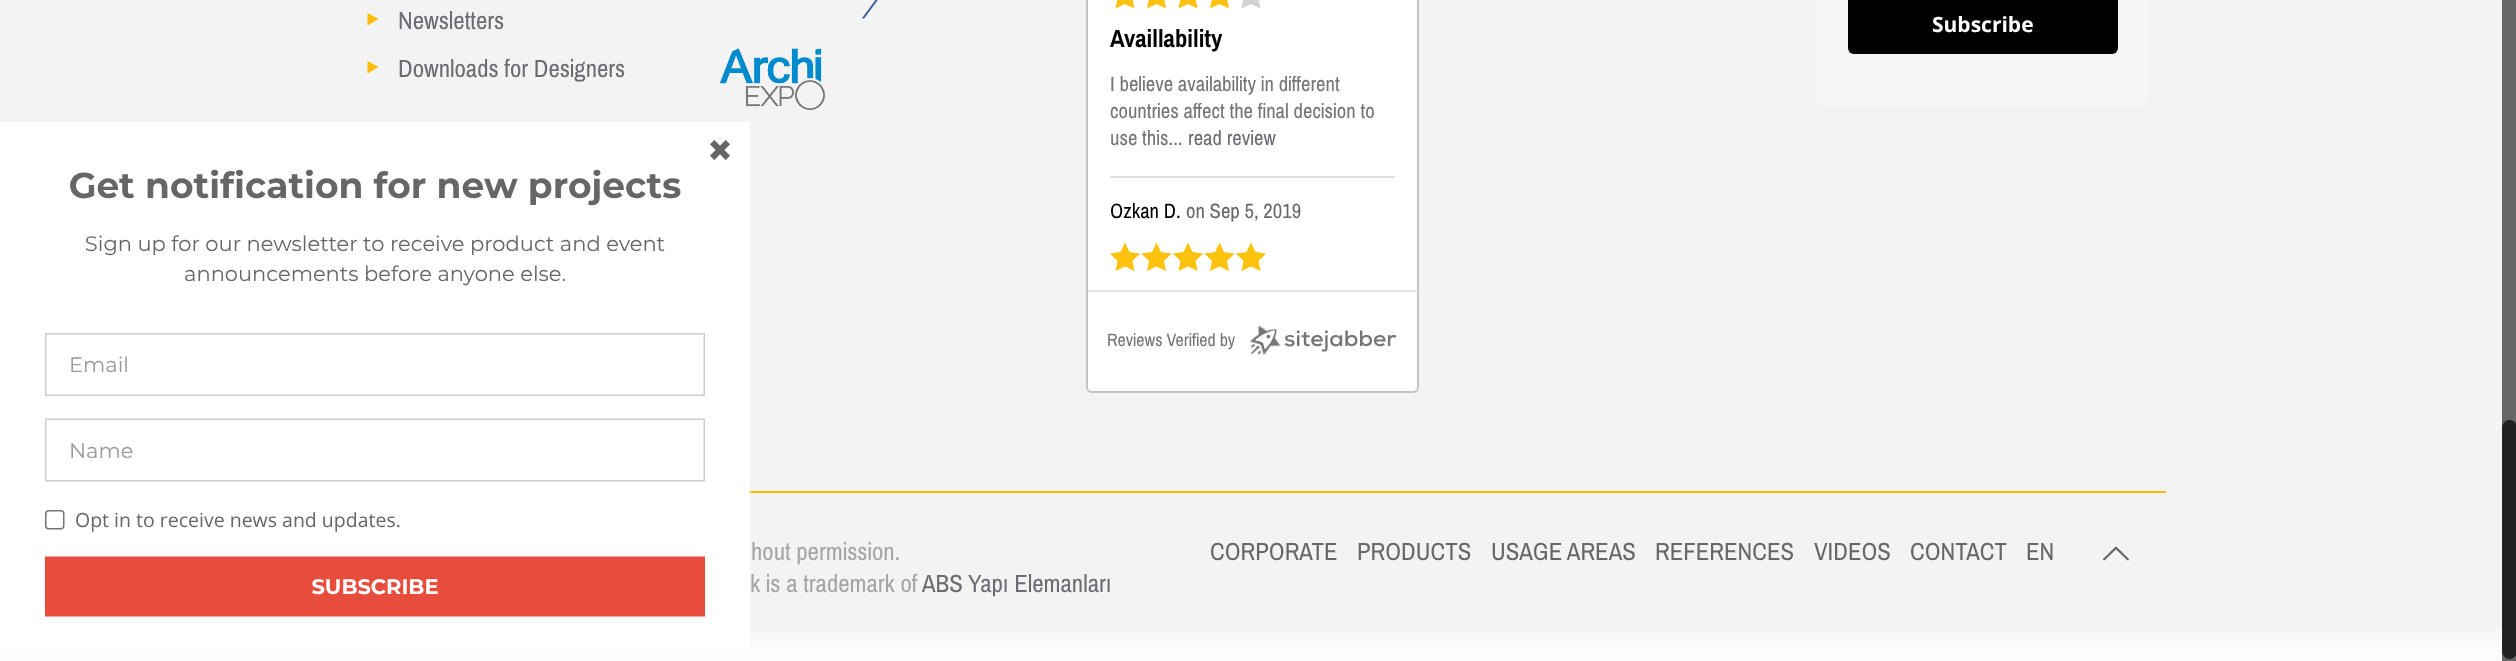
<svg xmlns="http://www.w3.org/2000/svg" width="2516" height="661">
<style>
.a{font:27px Pragati Narrow;fill:#696c72}
.b{font:bold 21px Open Sans;fill:#fff}
.c{font:bold 27px Pragati Narrow;fill:#000}
.d{font:22.5px Pragati Narrow;fill:#757575}
.e{font:22.5px Pragati Narrow;fill:#696c72}
.f{font:22.5px Pragati Narrow;fill:#000}
.g{font:22.5px Pragati Narrow;fill:#676767}
.h{font:19.5px Pragati Narrow;fill:#757575}
.i{font:27px Pragati Narrow;fill:#a3a5a8}
.j{font:27px Pragati Narrow;fill:#676767}
</style>
<rect width="100%" height="100%" fill="#fcfcfc"/>
<path fill="#0000000f" filter="blur(11px)" d="M0 -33h2502v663H0z"/>
<path fill="#f3f3f3" d="M0 0h2502v630H0z"/>
<image href="1.png" x="0" y="122" width="750" height="532"/>
<path fill="#ffba00" d="M367.5 13l11 6l-11 6.5z"/>
<path fill="#ffba00" d="M367.5 61l11 6l-11 6.5z"/>
<image href="2.png" x="862" y="0" width="16" height="19"/>
<image href="3.png" x="720" y="48" width="105" height="62"/>
<rect fill="#f6f6f6" x="1818" y="-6" width="330" height="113" rx="6"/>
<rect fill="#000" x="1848" y="-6" width="270" height="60" rx="6"/>
<rect fill="#fff" stroke="#c4c4c4" stroke-width="2" x="1087" y="-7" width="331" height="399" rx="5"/>
<path fill="#fdc20e" d="M1140-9l-10.5-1.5l-4.5-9.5l-4.5 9.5l-10.5 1.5l7.5 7.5l-2 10l9.5-4.5l9.5 4.5l-2-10zm31.5 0l-10.5-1.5l-4.5-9.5l-4.5 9.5l-10.5 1.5l7.5 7.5l-2 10l9.5-4.5l9.5 4.5l-2-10z"/>
<path fill="#fdc20e" d="M1203-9l-10.5-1.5l-4.5-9.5l-4.5 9.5l-10.5 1.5l7.5 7.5l-2 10l9.5-4.5l9.5 4.5l-2-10zm31.5 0l-10.5-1.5l-4.5-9.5l-4.5 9.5l-10.5 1.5l7.5 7.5l-2 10l9.5-4.5l9.5 4.5l-2-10z"/>
<path fill="#d2d2d2" d="M1266-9l-10.5-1.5l-4.5-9.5l-4.5 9.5l-10.5 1.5l7.5 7.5l-2 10l9.5-4.5l9.5 4.5l-2-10z"/>
<path fill="#dedfe0" d="M1110 176h285v2H1110z"/>
<path fill="#fdc20e" d="M1140 253.5l-10.5-1.5l-4.5-9.5l-4.5 9.5l-10.5 1.5l7.5 7.5l-2 10l9.5-4.5l9.5 4.5l-2-10zm31.5 0l-10.5-1.5l-4.5-9.5l-4.5 9.5l-10.5 1.5l7.5 7.5l-2 10l9.5-4.5l9.5 4.5l-2-10z"/>
<path fill="#fdc20e" d="M1203 253.5l-10.5-1.5l-4.5-9.5l-4.5 9.5l-10.5 1.5l7.5 7.5l-2 10l9.5-4.5l9.5 4.5l-2-10zm31.5 0l-10.5-1.5l-4.5-9.5l-4.5 9.5l-10.5 1.5l7.5 7.5l-2 10l9.5-4.5l9.5 4.5l-2-10z"/>
<path fill="#fdc20e" d="M1266 253.5l-10.5-1.5l-4.5-9.5l-4.5 9.5l-10.5 1.5l7.5 7.5l-2 10l9.5-4.5l9.5 4.5l-2-10z"/>
<path fill="#e5e5e5" d="M1088 290h330v2H1088z"/>
<image href="4.png" x="1249" y="325" width="148" height="30"/>
<path fill="#ffba00" d="M750 491h1416v2H750z"/>
<image href="5.png" x="2103" y="546" width="26" height="15"/>
<path fill="#666" d="M2502 0h14v661H2502z"/>
<rect fill="#222" x="2502" y="420" width="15" height="239" rx="7.5"/>
<text class="a" x="398" y="29">Newsletters</text>
<text class="a" x="398" y="77">Downloads for Designers</text>
<text class="b" x="1932" y="32">Subscribe</text>
<text class="c" x="1110" y="47">Availlability</text>
<text class="d" x="1110" y="91">I believe availability in different</text>
<text class="d" x="1110" y="118">countries affect the final decision to</text>
<text class="d" x="1110" y="145">use this...</text>
<text class="e" x="1188" y="145">read review</text>
<text class="f" x="1110" y="218">Ozkan D.</text>
<text class="g" x="1186" y="218">on Sep 5, 2019</text>
<text class="h" x="1107" y="346">Reviews Verified by</text>
<text class="i" x="751" y="560">hout permission.</text>
<text class="i" x="750" y="592">k is a trademark of</text>
<text class="a" x="922" y="592">ABS Yapı Elemanları</text>
<text class="j" x="1210" y="560">CORPORATE</text>
<text class="j" x="1357" y="560">PRODUCTS</text>
<text class="j" x="1491" y="560">USAGE AREAS</text>
<text class="j" x="1655" y="560">REFERENCES</text>
<text class="j" x="1814" y="560">VIDEOS</text>
<text class="j" x="1910" y="560">CONTACT</text>
<text class="j" x="2026" y="560">EN</text>
</svg>
